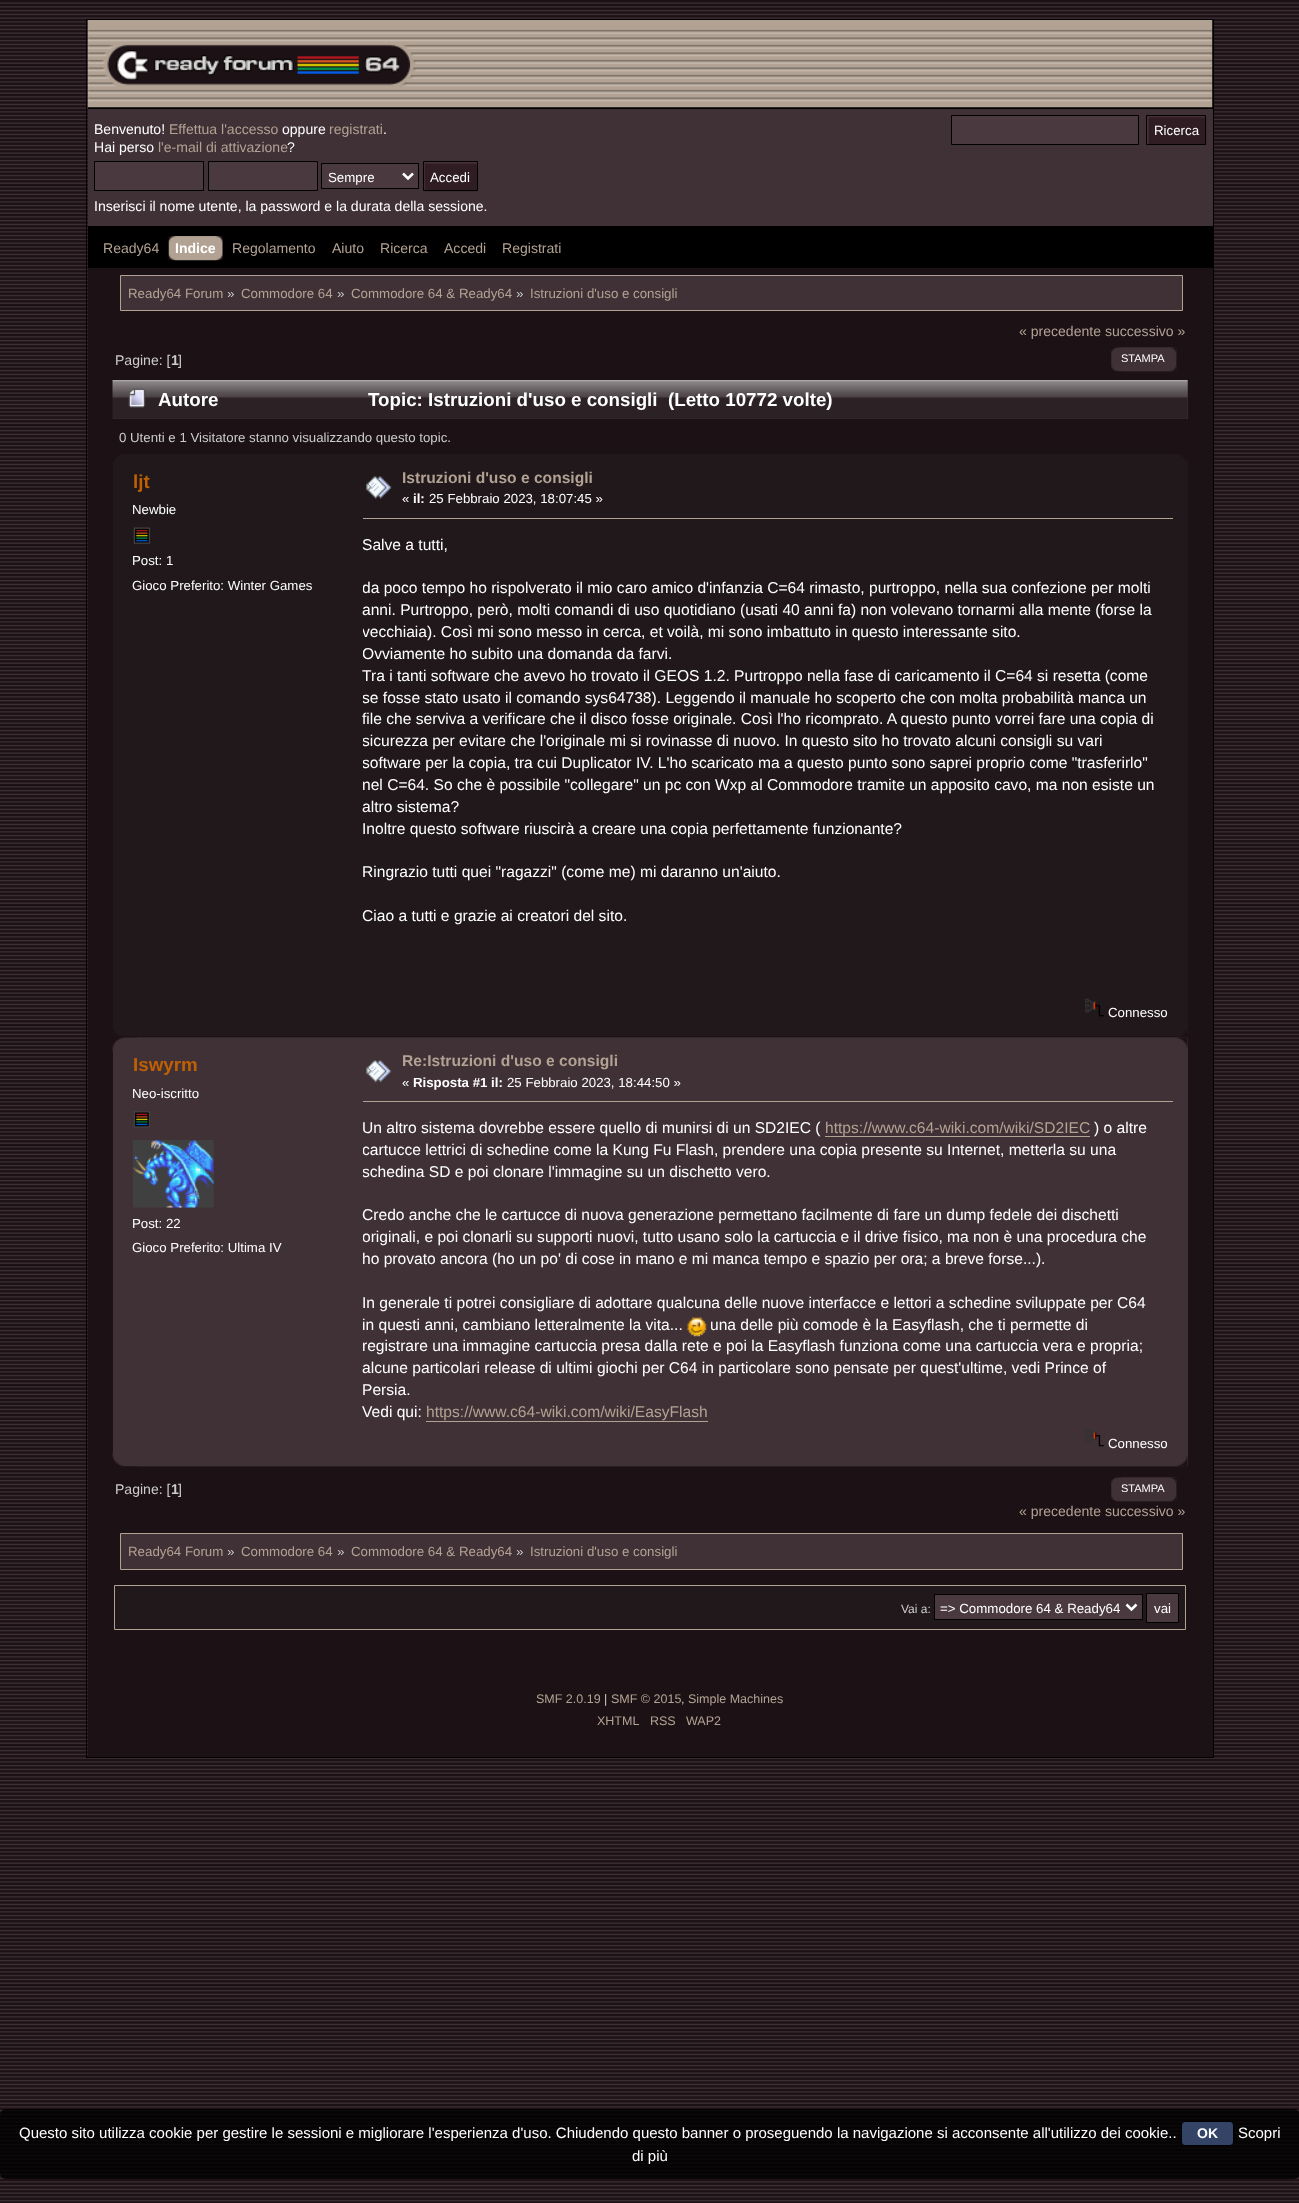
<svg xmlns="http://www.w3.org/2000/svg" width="1299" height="2203">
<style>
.a{font:14.05px Liberation Sans;fill:#fff}
.b{font:14.05px Liberation Sans;fill:#b2a293}
.c{font:13.3px Liberation Sans;fill:#fff}
.d{font:bold 14.05px Liberation Sans;fill:#fff}
.e{font:13.3px Liberation Sans;fill:#b2a293}
.f{font:13.3px Liberation Sans;fill:#ccc}
.g{font:14.05px Liberation Sans;fill:#ccc}
.h{font:bold 14.05px Liberation Sans;fill:#ccc}
.i{font:11px Liberation Sans;fill:#fff}
.j{font:bold 18.75px Liberation Sans;fill:#fff}
.k{font:13.25px Liberation Sans;fill:#ccc}
.l{font:bold 18.75px Liberation Sans;fill:#c06002}
.m{font:13.25px Liberation Sans;fill:#fff}
.n{font:bold 15.6px Liberation Sans;fill:#b2a293}
.o{font:bold 13.25px Liberation Sans;fill:#fff}
.p{font:15.6px Liberation Sans;fill:#fff}
.q{font:15.6px Liberation Sans;fill:#b2a293}
.r{font:12px Liberation Sans;fill:#ccc}
.s{font:12.5px Liberation Sans;fill:#b2a293}
.t{font:12.5px Liberation Sans;fill:#ccc}
.u{font:15px Liberation Sans;fill:#fff}
.v{font:bold 14px Liberation Sans;fill:#fff}
</style>
<defs>
<clipPath id="clip1"><path d="M363 516h825v482H363z"/></clipPath>
<clipPath id="clip2"><path d="M363 1100h825v328H363z"/></clipPath>
</defs>
<rect width="100%" height="100%" fill="#1c1115"/>
<image href="1.png" x="0" y="2" width="1299" height="2200"/>
<path fill="none" stroke="#000" d="M86.5 19.5h1127v1738H86.5z"/>
<path fill="#000" d="M88 20h1125v248H88z"/>
<image href="2.png" x="87" y="20" width="1126" height="88"/>
<path fill="#403136" d="M88 109h1125v117H88z"/>
<path fill="#4a393e" stroke="#000" d="M94.5 161.5h109v29H94.5z"/>
<path fill="#4a393e" stroke="#000" d="M208.5 161.5h109v29H208.5z"/>
<path fill="#4a393e" stroke="#000" d="M321.5 163.5h97v25H321.5z"/>
<path fill="none" stroke="#fff" stroke-width="2.5" d="M403 173.5l5 5l5-5"/>
<path fill="#4a393e" d="M424 162h53v1H424z"/>
<image href="3.png" x="423" y="162" width="55" height="30"/>
<path fill="none" stroke="#000" d="M423.5 161.5h54v29H423.5z"/>
<path fill="#4a393e" stroke="#000" d="M951.5 115.5h187v29H951.5z"/>
<path fill="#4a393e" d="M1147 116h58v28H1147z"/>
<image href="4.png" x="1147" y="116" width="60" height="29"/>
<path fill="none" stroke="#000" d="M1146.5 115.5h59v29H1146.5z"/>
<image href="5.png" x="175" y="236" width="48" height="25"/>
<image href="6.png" x="168" y="236" width="49" height="25"/>
<path fill="#1c1115" d="M88 268h1125v1488H88z"/>
<path fill="#403136" stroke="#b2a293" d="M120.5 275.5h1062v35H120.5z"/>
<image href="7.png" x="1111" y="347" width="66" height="25"/>
<image href="8.png" x="1121" y="347" width="56" height="25"/>
<path fill="#403136" d="M113 380h1075v39H113z"/>
<image href="9.png" x="112" y="380" width="1076" height="39"/>
<image href="10.png" x="1187" y="380" width="1" height="14"/>
<image href="11.png" x="128" y="388" width="18" height="20"/>
<path fill="#20181b" d="M113 454h1075v582H113z"/>
<image href="12.png" x="113" y="454" width="8" height="8"/>
<image href="13.png" x="1179" y="454" width="9" height="7"/>
<image href="14.png" x="133" y="527" width="18" height="17"/>
<image href="15.png" x="366" y="476" width="26" height="23"/>
<path fill="#b2a293" d="M363 518h810v1H363z"/>
<image href="16.png" x="1085" y="998" width="19" height="19"/>
<image href="17.png" x="113" y="1030" width="6" height="6"/>
<image href="18.png" x="1182" y="1030" width="6" height="6"/>
<path fill="#403136" d="M113 1038h1075v428H113z"/>
<image href="19.png" x="112" y="1037" width="1076" height="15"/>
<image href="20.png" x="137" y="1037" width="1051" height="11"/>
<image href="21.png" x="133" y="1111" width="17" height="17"/>
<image href="22.png" x="132" y="1140" width="82" height="68"/>
<image href="23.png" x="366" y="1060" width="26" height="23"/>
<path fill="#b2a293" d="M363 1101h810v1H363z"/>
<path fill="#b2a293" d="M825 1136h265v1H825z"/>
<image href="24.png" x="687" y="1317" width="20" height="20"/>
<path fill="#b2a293" d="M426 1421h282v1H426z"/>
<image href="25.png" x="1085" y="1429" width="19" height="18"/>
<image href="26.png" x="112" y="1452" width="1076" height="15"/>
<image href="27.png" x="138" y="1456" width="1050" height="11"/>
<image href="7.png" x="1111" y="1477" width="66" height="25"/>
<image href="8.png" x="1121" y="1477" width="56" height="25"/>
<path fill="#403136" stroke="#b2a293" d="M120.5 1533.5h1062v36H120.5z"/>
<path fill="#20181b" stroke="#b2a293" d="M114.5 1585.5h1071v44H114.5z"/>
<path fill="#4a393e" stroke="#000" d="M934.5 1594.5h208v25H934.5z"/>
<path fill="none" stroke="#fff" stroke-width="2.5" d="M1126.5 1604.5l5 5l5-5"/>
<path fill="#4a393e" stroke="#000" d="M1146.5 1593.5h32v29H1146.5z"/>
<rect fill="#000000cc" y="2109" width="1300" height="70" rx="6"/>
<rect fill="#346" stroke="#000" x="1181.5" y="2121.5" width="52" height="24" rx="3.5"/>
<text class="a" x="94" y="134">Benvenuto!</text>
<text class="b" x="169" y="134">Effettua l'accesso</text>
<text class="a" x="282" y="134">oppure</text>
<text class="b" x="329" y="134">registrati</text>
<text class="a" x="383" y="134">.</text>
<text class="a" x="94" y="152">Hai perso</text>
<text class="b" x="158" y="152">l'e-mail di attivazione</text>
<text class="a" x="287" y="152">?</text>
<text class="c" x="328" y="182">Sempre</text>
<text class="c" x="430" y="182">Accedi</text>
<text class="a" x="94" y="211">Inserisci il nome utente, la password e la durata della sessione.</text>
<text class="c" x="1154" y="135">Ricerca</text>
<text class="b" x="103" y="253">Ready64</text>
<text class="d" x="175" y="253">Indice</text>
<text class="b" x="232" y="253">Regolamento</text>
<text class="b" x="332" y="253">Aiuto</text>
<text class="b" x="380" y="253">Ricerca</text>
<text class="b" x="444" y="253">Accedi</text>
<text class="b" x="502" y="253">Registrati</text>
<text class="e" x="128" y="298">Ready64 Forum</text>
<text class="f" x="227" y="298">»</text>
<text class="e" x="241" y="298">Commodore 64</text>
<text class="f" x="337" y="298">»</text>
<text class="e" x="351" y="298">Commodore 64 &amp; Ready64</text>
<text class="f" x="516" y="298">»</text>
<text class="e" x="530" y="298">Istruzioni d'uso e consigli</text>
<text class="b" x="1019" y="336">« precedente successivo »</text>
<text class="g" x="115" y="365">Pagine: [</text>
<text class="h" x="171" y="365">1</text>
<text class="g" x="178" y="365">]</text>
<text class="i" x="1121" y="362">STAMPA</text>
<text class="j" x="158" y="406">Autore</text>
<text class="j" xml:space="preserve" x="368" y="406">Topic: Istruzioni d'uso e consigli  (Letto 10772 volte)</text>
<text class="k" x="119" y="442">0 Utenti e 1 Visitatore stanno visualizzando questo topic.</text>
<text class="l" x="133" y="488">ljt</text>
<text class="m" x="132" y="514">Newbie</text>
<text class="m" x="132" y="565">Post: 1</text>
<text class="m" x="132" y="590">Gioco Preferito: Winter Games</text>
<text class="n" x="402" y="483">Istruzioni d'uso e consigli</text>
<text class="m" x="402" y="503">«</text>
<text class="o" x="413" y="503">il:</text>
<text class="m" x="429" y="503">25 Febbraio 2023, 18:07:45 »</text>
<text class="p" x="362" y="550">Salve a tutti,</text>
<g clip-path="url(#clip1)">
<text class="p" x="362" y="593">da poco tempo ho rispolverato il mio caro amico d'infanzia C=64 rimasto, purtroppo, nella sua confezione per molti</text>
</g>
<text class="p" x="362" y="615">anni. Purtroppo, però, molti comandi di uso quotidiano (usati 40 anni fa) non volevano tornarmi alla mente (forse la</text>
<g clip-path="url(#clip1)">
<text class="p" x="362" y="637">vecchiaia). Così mi sono messo in cerca, et voilà, mi sono imbattuto in questo interessante sito.</text>
<text class="p" x="362" y="659">Ovviamente ho subito una domanda da farvi.</text>
</g>
<text class="p" x="362" y="681">Tra i tanti software che avevo ho trovato il GEOS 1.2. Purtroppo nella fase di caricamento il C=64 si resetta (come</text>
<g clip-path="url(#clip1)">
<text class="p" x="362" y="703">se fosse stato usato il comando sys64738). Leggendo il manuale ho scoperto che con molta probabilità manca un</text>
</g>
<text class="p" x="362" y="724">file che serviva a verificare che il disco fosse originale. Così l'ho ricomprato. A questo punto vorrei fare una copia di</text>
<g clip-path="url(#clip1)">
<text class="p" x="362" y="746">sicurezza per evitare che l'originale mi si rovinasse di nuovo. In questo sito ho trovato alcuni consigli su vari</text>
<text class="p" x="362" y="768">software per la copia, tra cui Duplicator IV. L'ho scaricato ma a questo punto sono saprei proprio come "trasferirlo"</text>
</g>
<text class="p" x="362" y="790">nel C=64. So che è possibile "collegare" un pc con Wxp al Commodore tramite un apposito cavo, ma non esiste un</text>
<text class="p" x="362" y="812">altro sistema?</text>
<text class="p" x="362" y="834">Inoltre questo software riuscirà a creare una copia perfettamente funzionante?</text>
<text class="p" x="362" y="877">Ringrazio tutti quei "ragazzi" (come me) mi daranno un'aiuto.</text>
<text class="p" x="362" y="921">Ciao a tutti e grazie ai creatori del sito.</text>
<text class="m" x="1108" y="1017">Connesso</text>
<text class="l" x="133" y="1071">Iswyrm</text>
<text class="m" x="132" y="1098">Neo-iscritto</text>
<text class="m" x="132" y="1228">Post: 22</text>
<text class="m" x="132" y="1252">Gioco Preferito: Ultima IV</text>
<text class="n" x="402" y="1066">Re:Istruzioni d'uso e consigli</text>
<text class="m" x="402" y="1087">«</text>
<text class="o" x="413" y="1087">Risposta #1 il:</text>
<text class="m" x="507" y="1087">25 Febbraio 2023, 18:44:50 »</text>
<text class="p" x="362" y="1133">Un altro sistema dovrebbe essere quello di munirsi di un SD2IEC (</text>
<text class="q" x="825" y="1133">https://www.c64-wiki.com/wiki/SD2IEC</text>
<text class="p" x="1094" y="1133">) o altre</text>
<g clip-path="url(#clip2)">
<text class="p" x="362" y="1155">cartucce lettrici di schedine come la Kung Fu Flash, prendere una copia presente su Internet, metterla su una</text>
<text class="p" x="362" y="1177">schedina SD e poi clonare l'immagine su un dischetto vero.</text>
</g>
<text class="p" x="362" y="1220">Credo anche che le cartucce di nuova generazione permettano facilmente di fare un dump fedele dei dischetti</text>
<g clip-path="url(#clip2)">
<text class="p" x="362" y="1242">originali, e poi clonarli su supporti nuovi, tutto usano solo la cartuccia e il drive fisico, ma non è una procedura che</text>
</g>
<text class="p" x="362" y="1264">ho provato ancora (ho un po' di cose in mano e mi manca tempo e spazio per ora; a breve forse...).</text>
<text class="p" x="362" y="1308">In generale ti potrei consigliare di adottare qualcuna delle nuove interfacce e lettori a schedine sviluppate per C64</text>
<text class="p" x="362" y="1330">in questi anni, cambiano letteralmente la vita...</text>
<text class="p" x="710" y="1330">una delle più comode è la Easyflash, che ti permette di</text>
<text class="p" x="362" y="1351">registrare una immagine cartuccia presa dalla rete e poi la Easyflash funziona come una cartuccia vera e propria;</text>
<text class="p" x="362" y="1373">alcune particolari release di ultimi giochi per C64 in particolare sono pensate per quest'ultime, vedi Prince of</text>
<text class="p" x="362" y="1395">Persia.</text>
<text class="p" x="362" y="1417">Vedi qui:</text>
<text class="q" x="426" y="1417">https://www.c64-wiki.com/wiki/EasyFlash</text>
<text class="m" x="1108" y="1448">Connesso</text>
<text class="g" x="115" y="1494">Pagine: [</text>
<text class="h" x="171" y="1494">1</text>
<text class="g" x="178" y="1494">]</text>
<text class="i" x="1121" y="1492">STAMPA</text>
<text class="b" x="1019" y="1516">« precedente successivo »</text>
<text class="e" x="128" y="1556">Ready64 Forum</text>
<text class="f" x="227" y="1556">»</text>
<text class="e" x="241" y="1556">Commodore 64</text>
<text class="f" x="337" y="1556">»</text>
<text class="e" x="351" y="1556">Commodore 64 &amp; Ready64</text>
<text class="f" x="516" y="1556">»</text>
<text class="e" x="530" y="1556">Istruzioni d'uso e consigli</text>
<text class="r" x="901" y="1613">Vai a:</text>
<text class="c" x="940" y="1613">=&gt; Commodore 64 &amp; Ready64</text>
<text class="c" x="1154" y="1613">vai</text>
<text class="s" x="536" y="1703">SMF 2.0.19</text>
<text class="t" x="604" y="1703">|</text>
<text class="s" x="611" y="1703">SMF © 2015</text>
<text class="t" x="681" y="1703">,</text>
<text class="s" x="688" y="1703">Simple Machines</text>
<text class="s" x="597" y="1725">XHTML</text>
<text class="s" x="650" y="1725">RSS</text>
<text class="s" x="686" y="1725">WAP2</text>
<text class="u" x="19" y="2138">Questo sito utilizza cookie per gestire le sessioni e migliorare l'esperienza d'uso. Chiudendo questo banner o proseguendo la navigazione si acconsente all'utilizzo dei cookie..</text>
<text class="v" x="1197" y="2138">OK</text>
<text class="u" x="1238" y="2138">Scopri</text>
<text class="u" x="632" y="2161">di più</text>
</svg>
